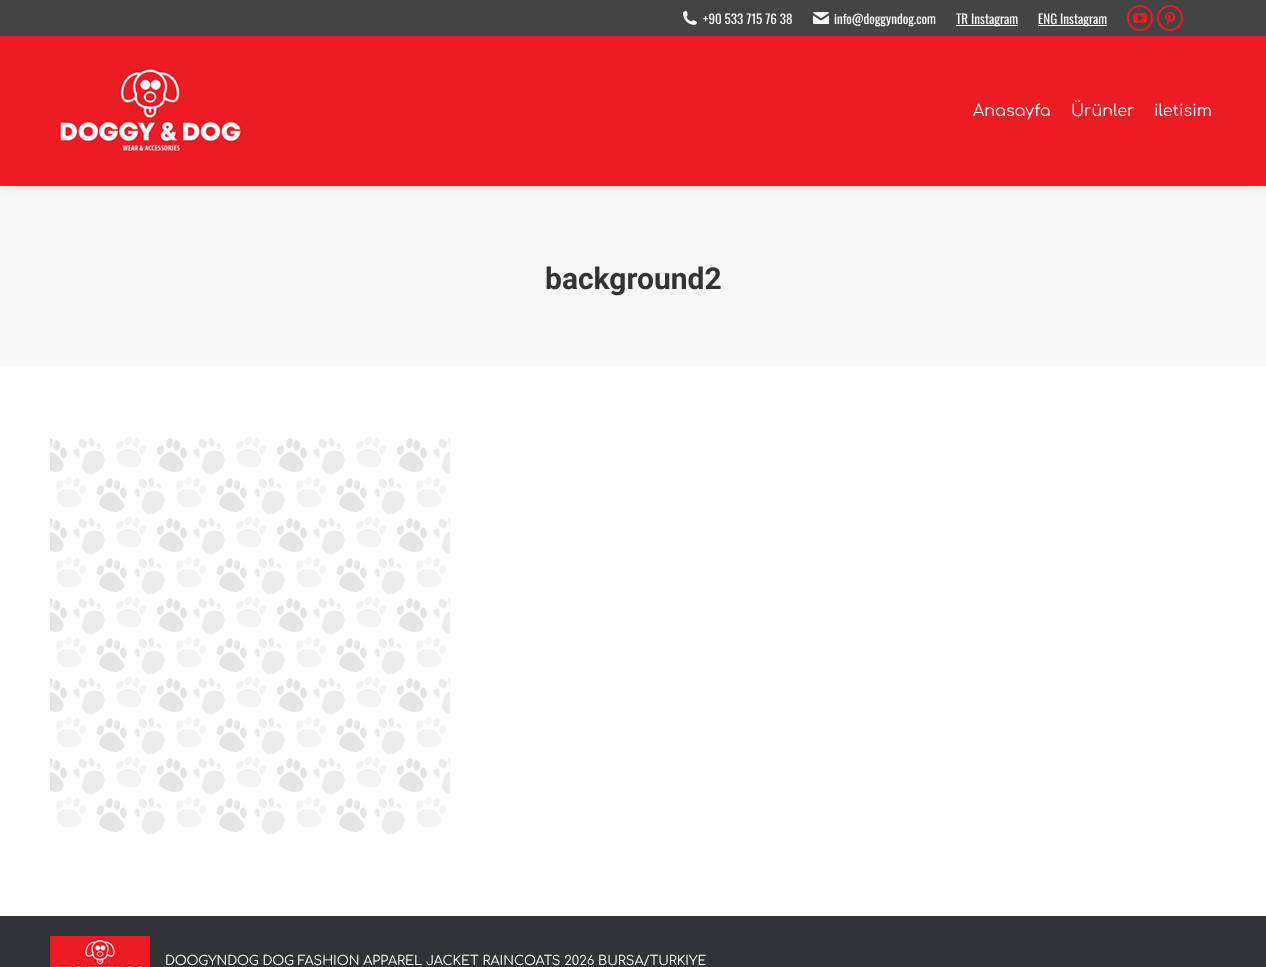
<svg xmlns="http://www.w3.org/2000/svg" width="1266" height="967">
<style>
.a{font:13px Oswald;fill:#fff}
.b{font:16px Comfortaa;fill:#fff}
.c{font:bold 30px Roboto;fill:#333}
.d{font:13px Comfortaa;fill:#fff}
</style>
<rect width="100%" height="100%" fill="#fff"/>
<path fill="#f7f7f7" d="M0 186h1266v180H0z"/>
<path fill="#00000012" filter="blur(7.5px)" d="M-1 -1h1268v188H-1z"/>
<path fill="#ed1c24" d="M0 36h1266v150H0z"/>
<path fill="#444" d="M0 0h1266v36H0z"/>
<image href="1.png" x="683" y="11" width="14" height="14"/>
<image href="2.png" x="813" y="12" width="16" height="12"/>
<path fill="#fff" d="M956 25h62v1H956z"/>
<path fill="#fff" d="M1038 25h69v1H1038z"/>
<circle fill="none" stroke="#ed1c24" stroke-width="2" cx="1140" cy="18" r="12"/>
<image href="3.png" x="1133" y="13" width="14" height="10"/>
<circle fill="none" stroke="#ed1c24" stroke-width="2" cx="1170" cy="18" r="12"/>
<image href="4.png" x="1164" y="12" width="12" height="13"/>
<image href="5.png" x="59" y="68" width="183" height="84"/>
<image href="6.png" x="50" y="436" width="400" height="398"/>
<path fill="#313336" d="M0 916h1266v51H0z"/>
<image href="7.png" x="50" y="936" width="100" height="31"/>
<text class="a" x="703" y="24">+90 533 715 76 38</text>
<text class="a" x="834" y="24">info@doggyndog.com</text>
<text class="a" x="956" y="24">TR Instagram</text>
<text class="a" x="1038" y="24">ENG Instagram</text>
<text class="b" x="973" y="116">Anasayfa</text>
<text class="b" x="1071" y="116">Ürünler</text>
<text class="b" x="1154" y="116">iletisim</text>
<text class="c" x="545" y="289">background2</text>
<text class="d" x="165" y="965">DOOGYNDOG DOG FASHION APPAREL JACKET RAINCOATS 2026 BURSA/TURKIYE</text>
</svg>
